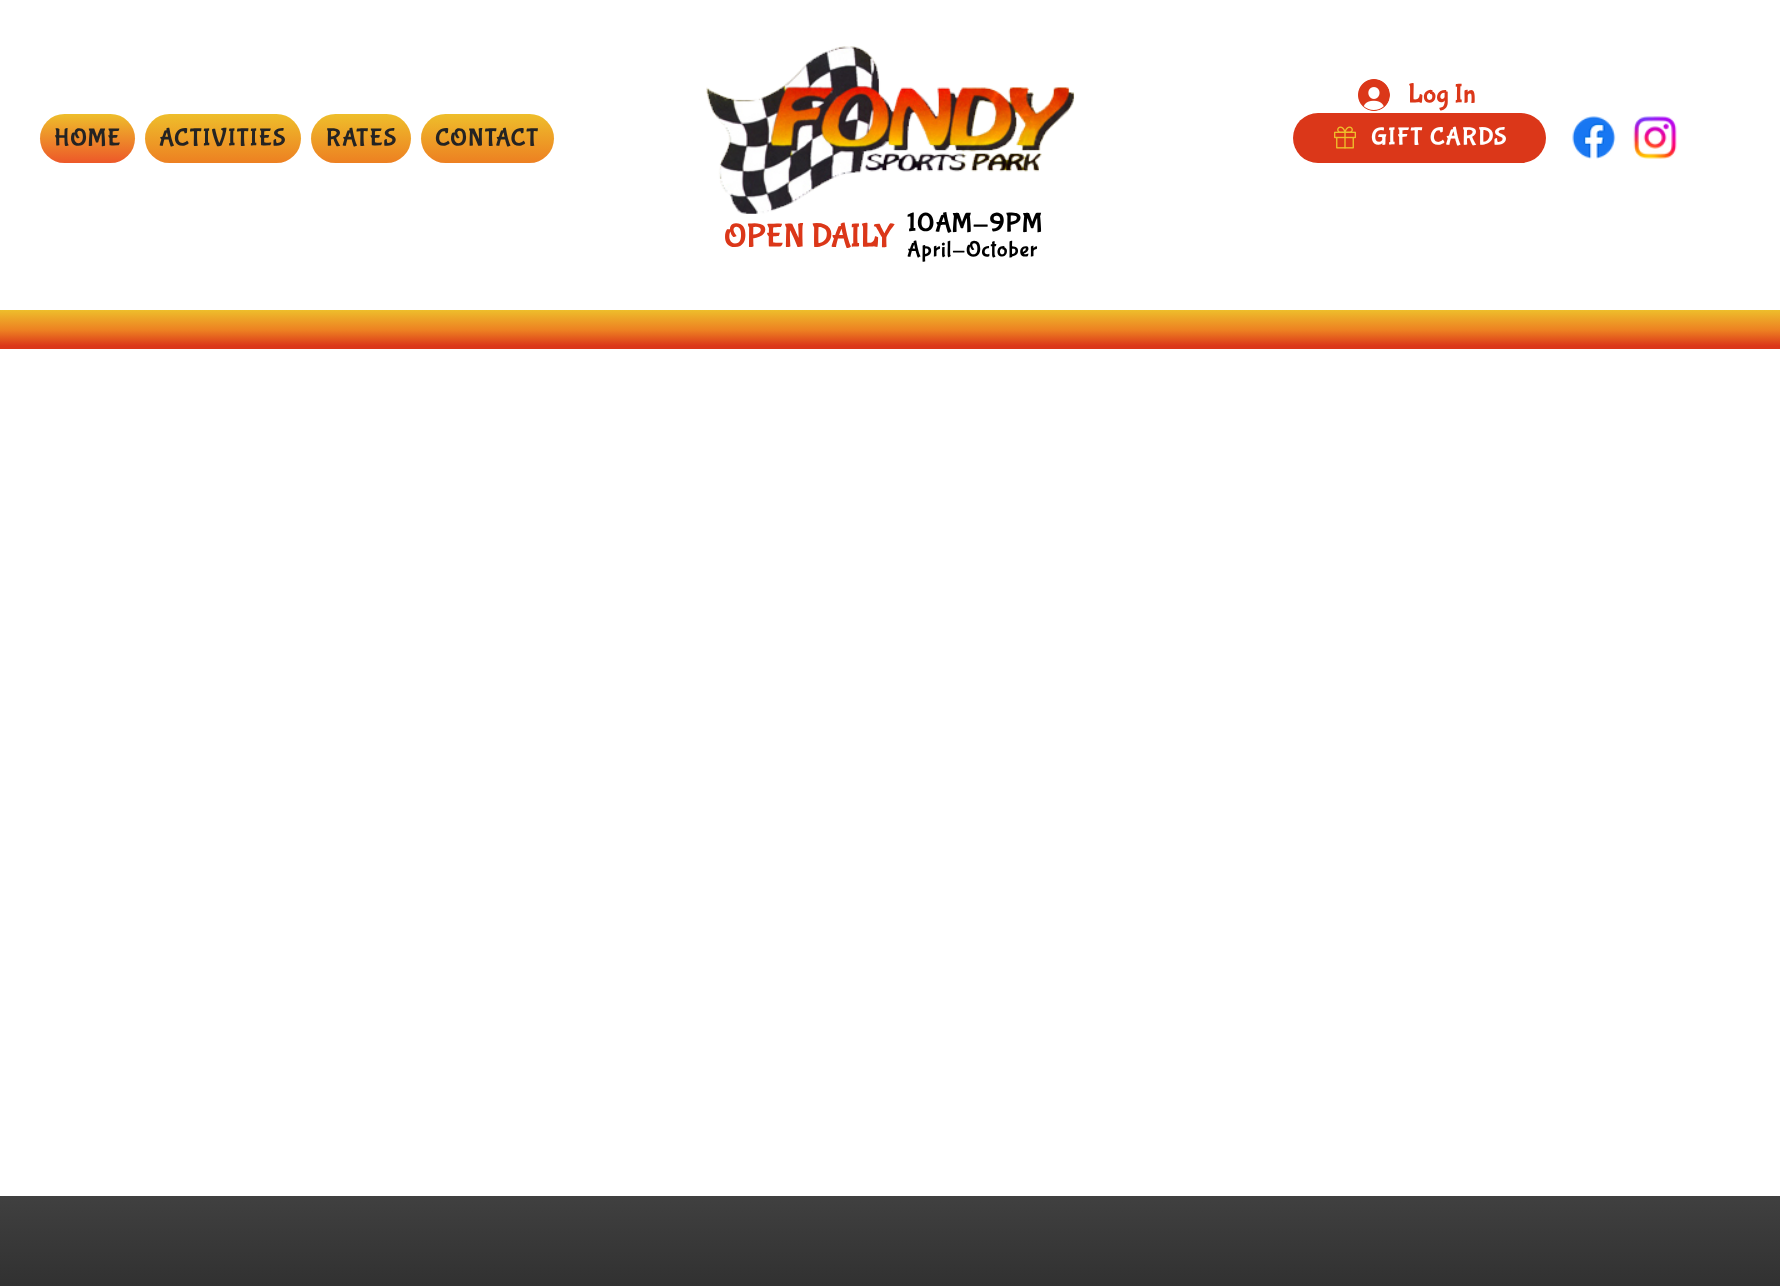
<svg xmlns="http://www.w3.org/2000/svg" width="1780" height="1286">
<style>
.a{font:27.5px Bubblegum Sans;fill:#db3719}
.b{font:25px Bubblegum Sans;letter-spacing:1.25px;fill:#242323}
.c{font:25px Bubblegum Sans;letter-spacing:1.25px;fill:#fff}
.d{font:33.75px Bubblegum Sans;fill:#db3719}
.e{font:27.5px Bubblegum Sans;letter-spacing:0.75px;fill:#000}
.f{font:22.5px Bubblegum Sans;letter-spacing:0.75px;fill:#000}
</style>
<defs>
<linearGradient id="g1" gradientUnits="userSpaceOnUse" x1="88" y1="114" x2="88" y2="163"><stop offset="0" stop-color="#eebe2b"/><stop offset="1" stop-color="#ed5829"/></linearGradient>
<linearGradient id="g2" gradientUnits="userSpaceOnUse" x1="223" y1="114" x2="223" y2="163"><stop offset="0" stop-color="#eebe2b"/><stop offset="1" stop-color="#ed8022"/></linearGradient>
<linearGradient id="g3" gradientUnits="userSpaceOnUse" x1="361" y1="114" x2="361" y2="163"><stop offset="0" stop-color="#eebe2b"/><stop offset="1" stop-color="#ed8022"/></linearGradient>
<linearGradient id="g4" gradientUnits="userSpaceOnUse" x1="488" y1="114" x2="488" y2="163"><stop offset="0" stop-color="#eebe2b"/><stop offset="1" stop-color="#ed8022"/></linearGradient>
<linearGradient id="g5" gradientUnits="userSpaceOnUse" x1="890" y1="349" x2="890" y2="310"><stop offset="0.08" stop-color="#db3719"/><stop offset="0.48" stop-color="#ed8022"/><stop offset="1" stop-color="#eebe2b"/></linearGradient>
<linearGradient id="g6" gradientUnits="userSpaceOnUse" x1="890" y1="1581" x2="890" y2="1196"><stop offset="0" stop-color="#000"/><stop offset="1" stop-color="#404040"/></linearGradient>
</defs>
<rect width="100%" height="100%" fill="#fff"/>
<image href="1.png" x="1358" y="79" width="32" height="32"/>
<rect fill="url(#g1)" x="40" y="114" width="95" height="49" rx="24.5"/>
<rect fill="url(#g2)" x="145" y="114" width="156" height="49" rx="24.5"/>
<rect fill="url(#g3)" x="311" y="114" width="100" height="49" rx="24.5"/>
<rect fill="url(#g4)" x="421" y="114" width="133" height="49" rx="24.5"/>
<rect fill="#db3719" x="1293" y="113" width="253" height="50" rx="25"/>
<image href="2.png" x="1334" y="126" width="22" height="23"/>
<image href="3.png" x="1572" y="116" width="44" height="43"/>
<image href="4.png" x="1633" y="116" width="44" height="43"/>
<image href="5.png" x="706" y="46" width="369" height="168"/>
<path fill="url(#g5)" d="M0 310h1780v39H0z"/>
<path fill="url(#g6)" d="M0 1196h1780v90H0z"/>
<text class="a" x="1408" y="102">Log In</text>
<text class="b" x="54" y="145">HOME</text>
<text class="b" x="159" y="145">ACTIVITIES</text>
<text class="b" x="326" y="145">RATES</text>
<text class="b" x="435" y="145">CONTACT</text>
<text class="c" x="1371" y="144">GIFT CARDS</text>
<text class="d" x="724" y="246">OPEN DAILY</text>
<text class="e" x="907" y="231">10AM-9P</text>
<text class="e" x="1022" y="231">M</text>
<text class="f" x="907" y="256">April-October</text>
</svg>
